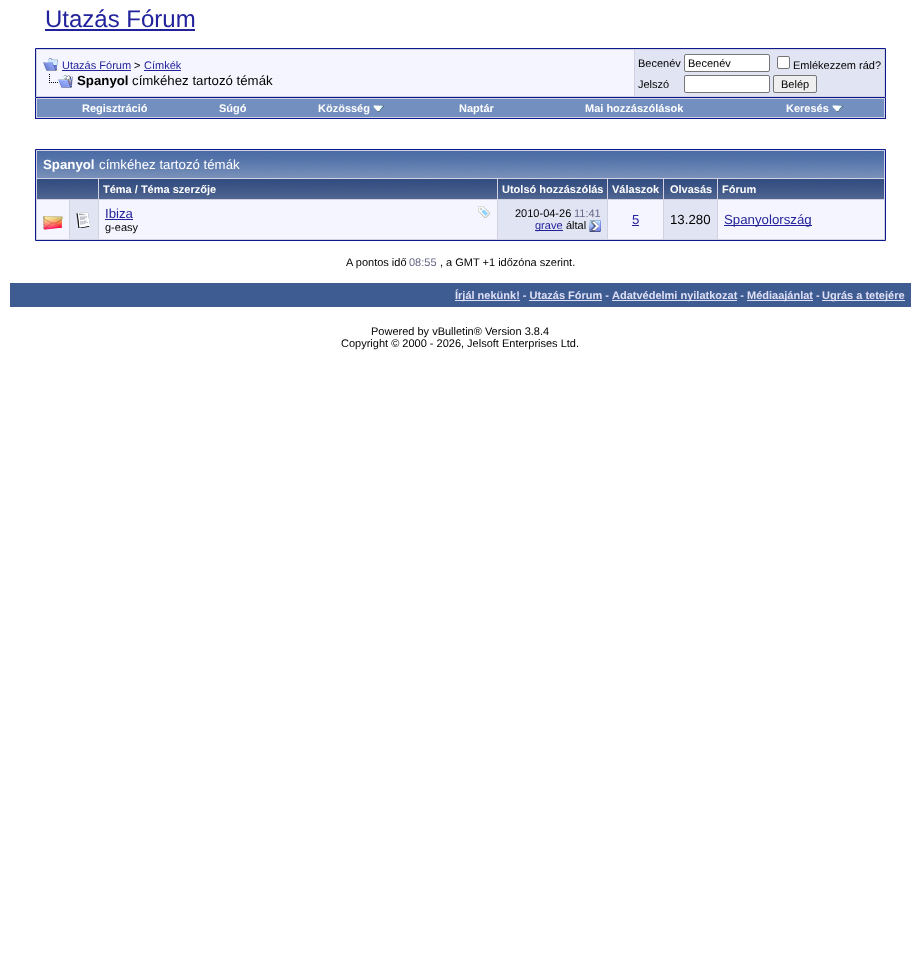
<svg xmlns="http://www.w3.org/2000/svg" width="921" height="962">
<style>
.a{font:24px Liberation Sans;fill:#22229c}
.b{font:11px Liberation Sans;fill:#22229c}
.c{font:11px Liberation Sans;fill:#000}
.d{font:bold 13.25px Liberation Sans;fill:#000}
.e{font:13.25px Liberation Sans;fill:#000}
.f{font:bold 11px Liberation Sans;fill:#fff}
.g{font:bold 13.25px Liberation Sans;fill:#fff}
.h{font:13.25px Liberation Sans;fill:#fff}
.i{font:13.25px Liberation Sans;fill:#22229c}
.j{font:11px Liberation Sans;fill:#666686}
.k{font:bold 11px Liberation Sans;fill:#e0e0f6}
</style>
<rect width="100%" height="100%" fill="#fff"/>
<path fill="#22229c" d="M45 29h150v2H45z"/>
<path fill="#d1d1e1" stroke="#0b198c" d="M35.5 48.5h850v49H35.5z"/>
<path fill="#f5f5ff" d="M37 50h597v46H37z"/>
<image href="1.png" x="43" y="58" width="15" height="13"/>
<path fill="#22229c" d="M62 70h69v1H62z"/>
<path fill="#22229c" d="M144 70h37v1H144z"/>
<image href="2.png" x="49" y="74" width="24" height="14"/>
<path fill="#e1e4f2" d="M635 50h249v46H635z"/>
<rect fill="#fff" stroke="#767676" x="684.5" y="54.5" width="85" height="17" rx="1.5"/>
<rect fill="#fff" stroke="#767676" x="777.5" y="56.5" width="12" height="12" rx="1.5"/>
<rect fill="#fff" stroke="#767676" x="684.5" y="75.5" width="85" height="17" rx="1.5"/>
<rect fill="#efefef" stroke="#767676" x="773.5" y="75.5" width="43" height="17" rx="1.5"/>
<path fill="#d1d1e1" d="M36 98h849v20H36z"/>
<path fill="#0b198c" d="M885 98h1v21H885z"/>
<path fill="#0b198c" d="M35 118h851v1H35z"/>
<path fill="#0b198c" d="M35 98h1v21H35z"/>
<path fill="#738fbf" d="M37 99h847v18H37z"/>
<image href="3.png" x="373" y="105" width="11" height="7"/>
<image href="3.png" x="832" y="105" width="11" height="7"/>
<path fill="#d1d1e1" stroke="#0b198c" d="M35.5 149.5h850v91H35.5z"/>
<image href="4.png" x="37" y="151" width="847" height="27"/>
<image href="5.png" x="37" y="179" width="61" height="20"/>
<image href="6.png" x="99" y="179" width="398" height="20"/>
<image href="7.png" x="498" y="179" width="109" height="20"/>
<image href="8.png" x="608" y="179" width="55" height="20"/>
<image href="9.png" x="664" y="179" width="53" height="20"/>
<image href="10.png" x="718" y="179" width="166" height="20"/>
<path fill="#f5f5ff" d="M37 200h32v39H37z"/>
<image href="11.png" x="43" y="216" width="20" height="14"/>
<path fill="#e1e4f2" d="M70 200h28v39H70z"/>
<image href="12.png" x="76" y="212" width="15" height="16"/>
<path fill="#f5f5ff" d="M99 200h398v39H99z"/>
<path fill="#22229c" d="M105 219h28v1H105z"/>
<image href="13.png" x="478" y="206" width="12" height="12"/>
<path fill="#e1e4f2" d="M498 200h109v39H498z"/>
<path fill="#22229c" d="M535 230h28v1H535z"/>
<image href="14.png" x="589" y="220" width="12" height="12"/>
<path fill="#f5f5ff" d="M608 200h55v39H608z"/>
<path fill="#22229c" d="M632 225h7v1H632z"/>
<path fill="#e1e4f2" d="M664 200h53v39H664z"/>
<path fill="#f5f5ff" d="M718 200h166v39H718z"/>
<path fill="#22229c" d="M724 225h88v1H724z"/>
<path fill="#3e5c92" d="M10 283h901v24H10z"/>
<path fill="#e0e0f6" d="M455 300h65v1H455z"/>
<path fill="#e0e0f6" d="M529 300h73v1H529z"/>
<path fill="#e0e0f6" d="M612 300h125v1H612z"/>
<path fill="#e0e0f6" d="M747 300h66v1H747z"/>
<path fill="#e0e0f6" d="M822 300h83v1H822z"/>
<text class="a" x="45" y="27">Utazás Fórum</text>
<text class="b" x="62" y="69">Utazás Fórum</text>
<text class="c" x="134" y="69">&gt;</text>
<text class="b" x="144" y="69">Címkék</text>
<text class="d" x="77" y="85">Spanyol</text>
<text class="e" x="132" y="85">címkéhez tartozó témák</text>
<text class="c" x="638" y="67">Becenév</text>
<text class="c" x="688" y="67">Becenév</text>
<text class="c" x="793" y="69">Emlékezzem rád?</text>
<text class="c" x="638" y="88">Jelszó</text>
<text class="c" x="781" y="88">Belép</text>
<text class="f" x="82" y="112">Regisztráció</text>
<text class="f" x="219" y="112">Súgó</text>
<text class="f" x="318" y="112">Közösség</text>
<text class="f" x="459" y="112">Naptár</text>
<text class="f" x="585" y="112">Mai hozzászólások</text>
<text class="f" x="786" y="112">Keresés</text>
<text class="g" x="43" y="169">Spanyol</text>
<text class="h" x="99" y="169">címkéhez tartozó témák</text>
<text class="f" x="103" y="193">Téma / Téma szerzője</text>
<text class="f" x="502" y="193">Utolsó hozzászólás</text>
<text class="f" x="612" y="193">Válaszok</text>
<text class="f" x="670" y="193">Olvasás</text>
<text class="f" x="722" y="193">Fórum</text>
<text class="i" x="105" y="218">Ibiza</text>
<text class="c" x="105" y="231">g-easy</text>
<text class="c" x="515" y="217">2010-04-26</text>
<text class="j" x="574" y="217">11:41</text>
<text class="b" x="535" y="229">grave</text>
<text class="c" x="566" y="229">által</text>
<text class="i" x="632" y="224">5</text>
<text class="e" x="670" y="224">13.280</text>
<text class="i" x="724" y="224">Spanyolország</text>
<text class="c" x="346" y="266">A pontos idő</text>
<text class="j" x="409" y="266">08:55</text>
<text class="c" x="440" y="266">, a GMT +1 időzóna szerint.</text>
<text class="k" x="455" y="299">Írjál nekünk! - Utazás Fórum -</text>
<text class="k" x="612" y="299">Adatvédelmi nyilatkozat -</text>
<text class="k" x="747" y="299">Médiaajánlat -</text>
<text class="k" x="822" y="299">Ugrás a tetejére</text>
<text class="c" x="371" y="335">Powered by vBulletin® Version 3.8.4</text>
<text class="c" x="341" y="347">Copyright © 2000 - 2026, Jelsoft Enterprises Ltd.</text>
</svg>
